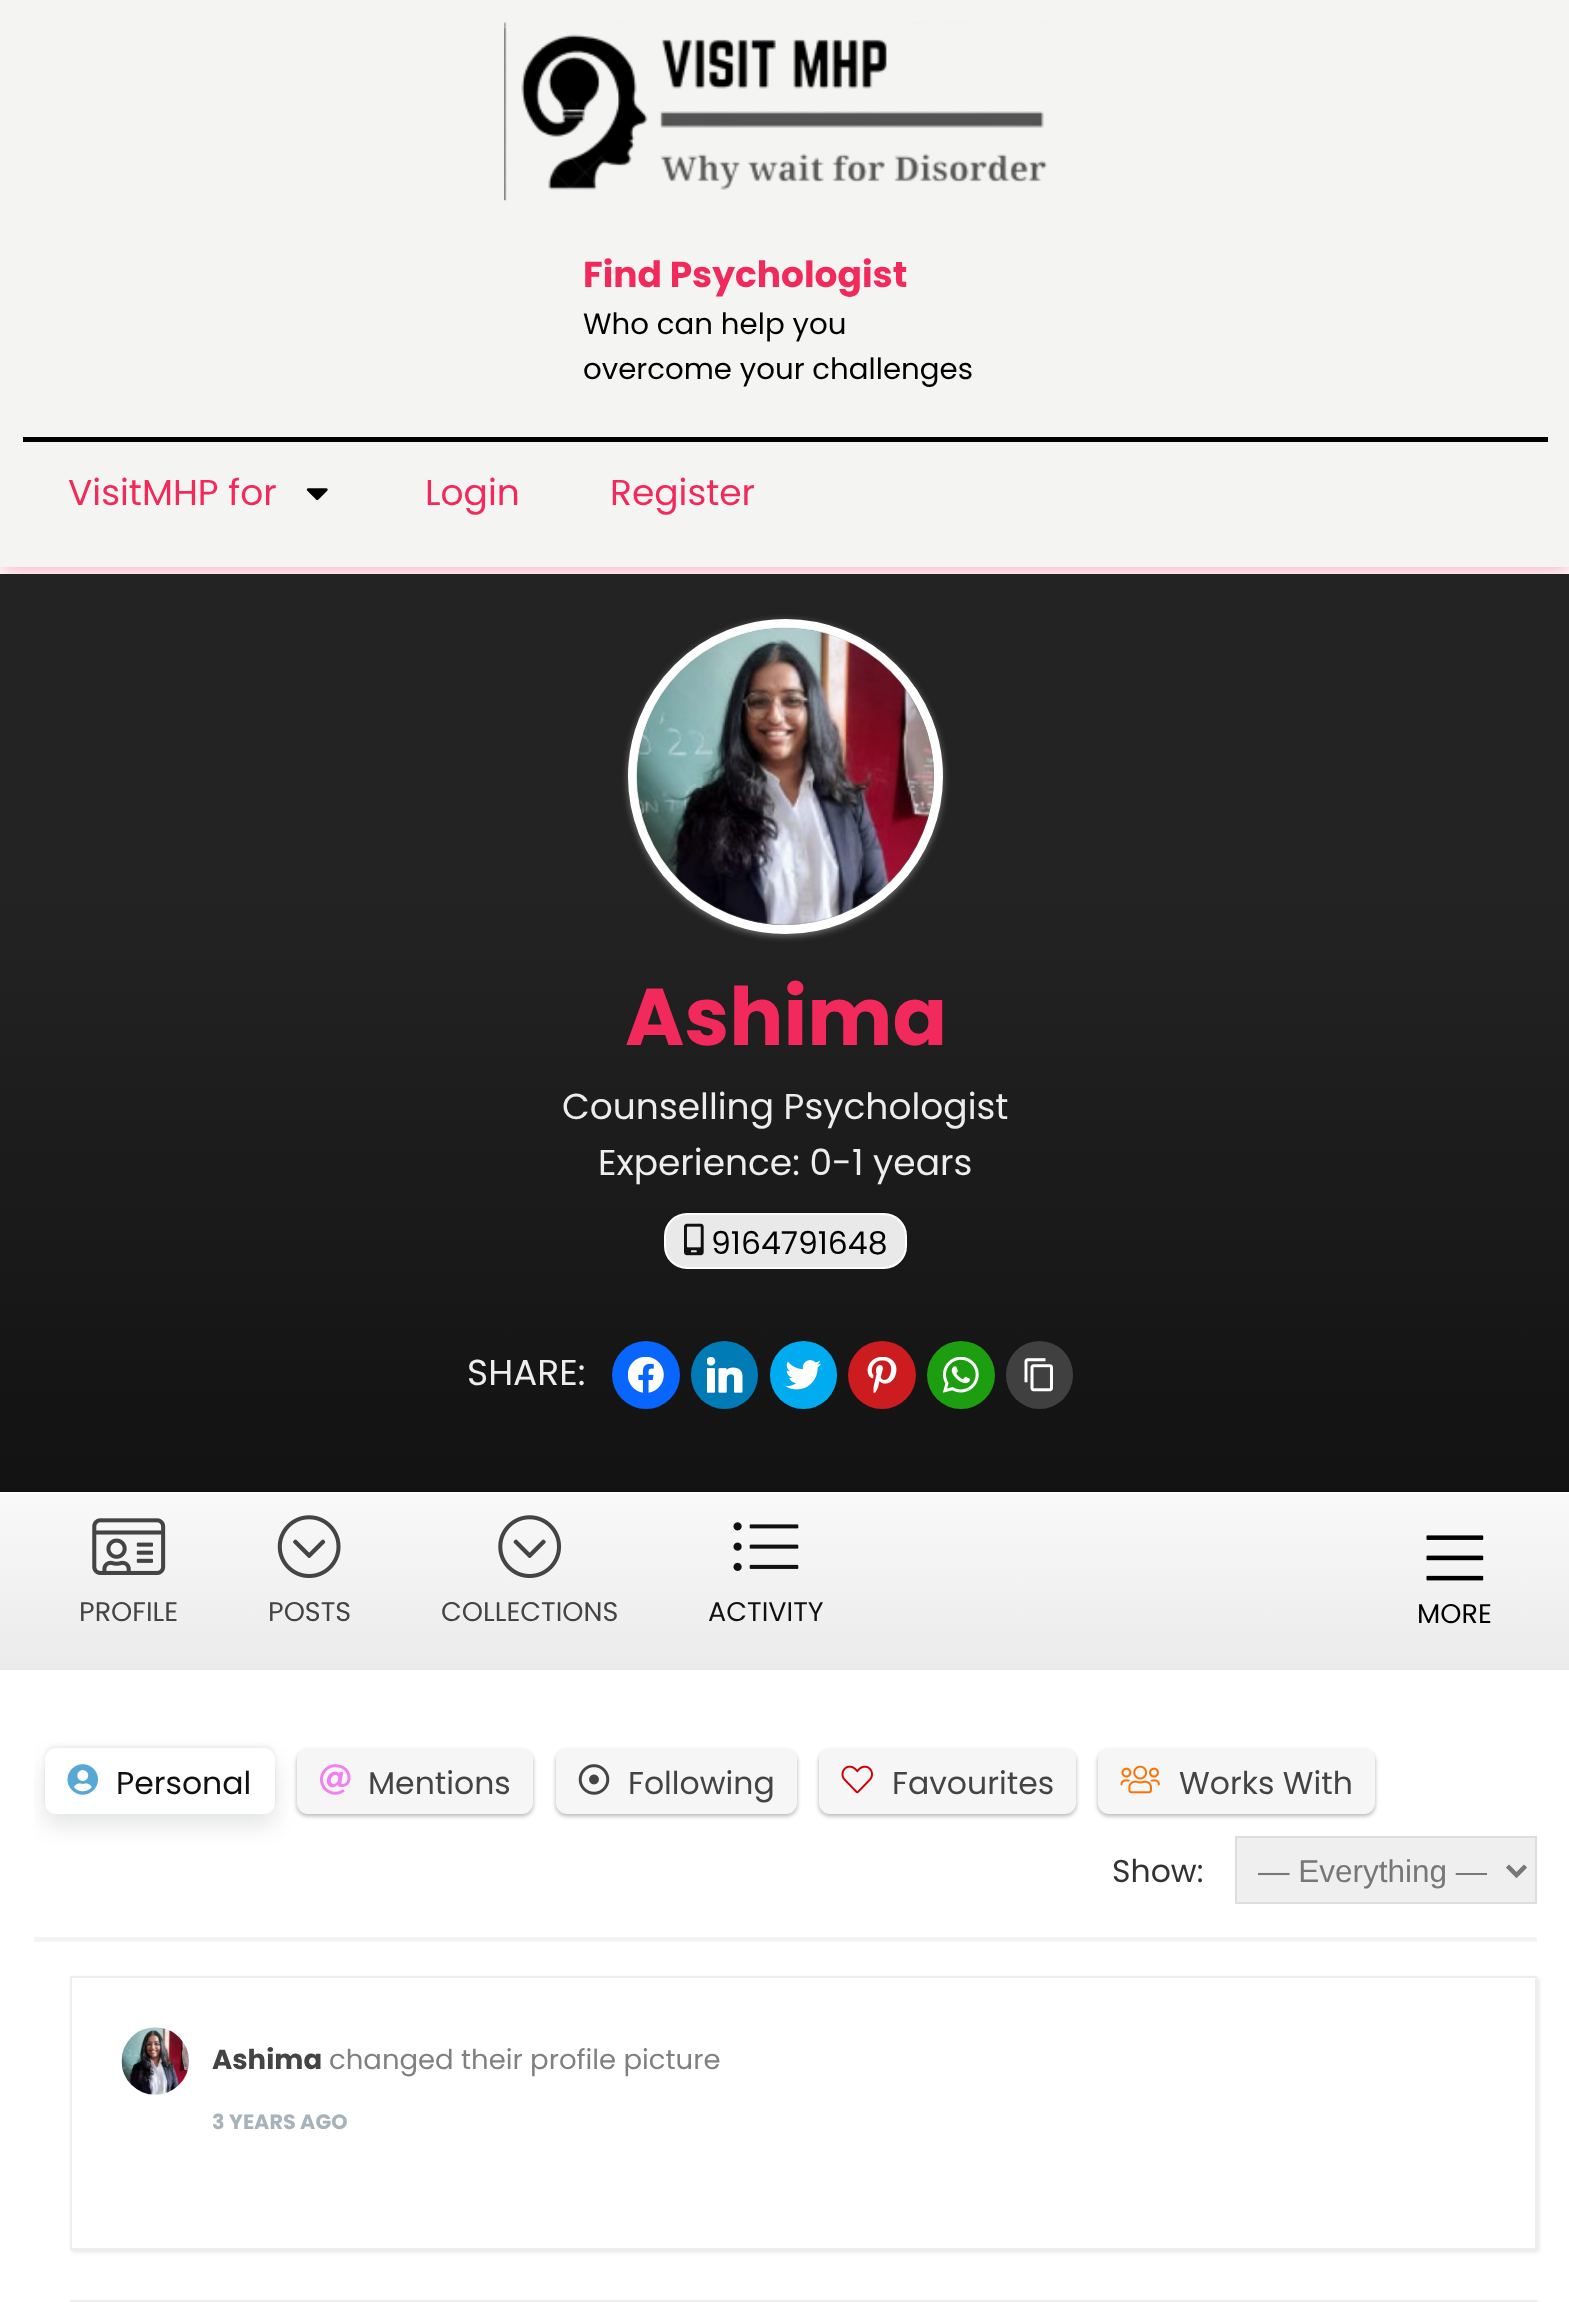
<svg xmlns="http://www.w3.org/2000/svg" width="1569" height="2302">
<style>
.a{font:bold 36px Poppins;fill:#f2295b}
.b{font:29.25px Poppins;fill:#000}
.c{font:36px Poppins;fill:#f2295b}
.d{font:bold 80.5px Poppins;fill:#f2295b}
.e{font:36px Poppins;fill:#ededed}
.f{font:31.5px Poppins;fill:#000}
.g{font:27px Poppins;fill:#444}
.h{font:27px Poppins;fill:#111}
.i{font:27px Poppins;fill:#000}
.j{font:31.5px Poppins;fill:#111}
.k{font:31.5px Poppins;fill:#444}
.l{font:31.5px Poppins;fill:#333}
.m{font:31.5px Liberation Sans;fill:#777}
.n{font:bold 27.5px Poppins;fill:#444}
.o{font:27.5px Poppins;fill:#808080}
.p{font:bold 20.75px Poppins;fill:#a6b3ba}
</style>
<defs>
<linearGradient id="g1" gradientUnits="userSpaceOnUse" x1="785" y1="574" x2="785" y2="1492"><stop offset="0.35" stop-color="#232323"/><stop offset="1" stop-color="#121212"/></linearGradient>
<linearGradient id="g2" gradientUnits="userSpaceOnUse" x1="785" y1="1492" x2="785" y2="1670"><stop offset="0.01" stop-color="#fff"/><stop offset="0.01" stop-color="#f9f9f9"/><stop offset="1" stop-color="#ebebeb"/></linearGradient>
<clipPath id="clip1"><path d="M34 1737h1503v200H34z"/></clipPath>
<clipPath id="clip2"><path d="M1258 1850h229v40H1258z"/></clipPath>
</defs>
<rect width="100%" height="100%" fill="#fff"/>
<path fill="#f2295b80" filter="blur(11px)" d="M0 0h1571v567H0z"/>
<path fill="#f4f4f2" d="M0 0h1569v567H0z"/>
<image href="1.png" x="504" y="22" width="544" height="179"/>
<path fill="#000" d="M23 437h1525v5H23z"/>
<image href="2.png" x="306" y="488" width="22" height="13"/>
<path fill="url(#g1)" d="M0 574h1569v918H0z"/>
<rect fill="#777" filter="blur(3.5px)" x="628" y="621" width="315" height="315" rx="157.5"/>
<circle fill="none" stroke="#fff" stroke-width="9" cx="785.5" cy="776.5" r="153"/>
<image href="3.png" x="636" y="627" width="298" height="298"/>
<rect fill="#e9e9e9" stroke="#fff" stroke-width="2" x="665" y="1214" width="241" height="54" rx="22"/>
<image href="4.png" x="684" y="1223" width="20" height="33"/>
<circle fill="#0866ff" cx="646" cy="1375" r="34"/>
<image href="5.png" x="628" y="1357" width="36" height="36"/>
<rect fill="#007bb6" x="691" y="1341" width="67" height="68" rx="33.5"/>
<image href="6.png" x="707" y="1357" width="36" height="36"/>
<rect fill="#00abf0" x="770" y="1341" width="67" height="68" rx="33.5"/>
<image href="7.png" x="785" y="1360" width="36" height="30"/>
<circle fill="#cd1c1f" cx="882" cy="1375" r="34"/>
<image href="8.png" x="867" y="1357" width="30" height="36"/>
<circle fill="#1d9e11" cx="961" cy="1375" r="34"/>
<image href="9.png" x="943" y="1357" width="36" height="36"/>
<rect fill="#404040" x="1006" y="1341" width="67" height="68" rx="33.5"/>
<image href="10.png" x="1024" y="1358" width="29" height="34"/>
<path fill="url(#g2)" d="M0 1494h1569v176H0z"/>
<image href="11.png" x="92" y="1518" width="74" height="57"/>
<image href="12.png" x="277" y="1515" width="64" height="63"/>
<image href="13.png" x="498" y="1515" width="64" height="63"/>
<image href="14.png" x="733" y="1522" width="66" height="49"/>
<image href="15.png" x="1426" y="1535" width="58" height="46"/>
<path fill="#f4f4f2" d="M34 1937h1503v5H34z"/>
<g clip-path="url(#clip1)">
<rect fill="#3c404324" filter="blur(11px)" x="45" y="1760" width="230" height="65" rx="11"/>
</g>
<rect fill="#3c40431a" filter="blur(2px)" x="45" y="1746" width="230" height="65" rx="11"/>
<rect fill="#fff" x="45" y="1748" width="230" height="66" rx="11"/>
<image href="16.png" x="67" y="1764" width="31" height="31"/>
<rect fill="#00000014" filter="blur(2px)" x="297" y="1751" width="236" height="65" rx="11"/>
<rect fill="#3c40434d" filter="blur(2px)" x="297" y="1751" width="236" height="65" rx="11"/>
<rect fill="#f6f6f6" x="297" y="1748" width="236" height="66" rx="11"/>
<image href="17.png" x="320" y="1764" width="31" height="31"/>
<rect fill="#00000014" filter="blur(2px)" x="556" y="1751" width="241" height="65" rx="11"/>
<rect fill="#3c40434d" filter="blur(2px)" x="556" y="1751" width="241" height="65" rx="11"/>
<rect fill="#f6f6f6" x="556" y="1748" width="241" height="66" rx="11"/>
<image href="18.png" x="578" y="1764" width="32" height="31"/>
<rect fill="#00000014" filter="blur(2px)" x="819" y="1751" width="257" height="65" rx="11"/>
<rect fill="#3c40434d" filter="blur(2px)" x="819" y="1751" width="257" height="65" rx="11"/>
<rect fill="#f6f6f6" x="819" y="1748" width="257" height="66" rx="11"/>
<image href="19.png" x="841" y="1765" width="32" height="29"/>
<rect fill="#00000014" filter="blur(2px)" x="1098" y="1751" width="277" height="65" rx="11"/>
<rect fill="#3c40434d" filter="blur(2px)" x="1098" y="1751" width="277" height="65" rx="11"/>
<rect fill="#f6f6f6" x="1098" y="1748" width="277" height="66" rx="11"/>
<image href="20.png" x="1120" y="1765" width="40" height="29"/>
<path fill="#efefef" stroke="#ddd" stroke-width="2" d="M1236 1837h300v66H1236z"/>
<path fill="none" stroke="#777" stroke-width="4.5" d="M1507.5 1866l9 9l9-9"/>
<path fill="#0000001a" filter="blur(2px)" d="M72 1978h1467v274H72z"/>
<path fill="#fff" stroke="#eee" stroke-width="2" d="M71 1977h1465v272H71z"/>
<image href="21.png" x="121" y="2027" width="68" height="68"/>
<path fill="#0000001a" filter="blur(2px)" d="M72 2302h1467v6H72z"/>
<path fill="none" stroke="#eee" stroke-width="2" d="M71 2301h1465v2H71z"/>
<text class="a" x="583" y="287">Find Psychologist</text>
<text class="b" x="583" y="334">Who can help you</text>
<text class="b" x="583" y="379">overcome your challenges</text>
<text class="c" x="68" y="505">VisitMHP for</text>
<text class="c" x="425" y="505">Login</text>
<text class="c" x="610" y="505">Register</text>
<text class="d" x="625" y="1045">Ashima</text>
<text class="e" x="562" y="1119">Counselling Psychologist</text>
<text class="e" x="598" y="1175">Experience: 0-1 years</text>
<text class="f" x="711" y="1254">9164791648</text>
<text class="e" x="467" y="1385">SHARE:</text>
<text class="g" x="79" y="1621">PROFILE</text>
<text class="g" x="268" y="1621">POSTS</text>
<text class="g" x="441" y="1621">COLLECTIONS</text>
<text class="h" x="708" y="1621">ACTIVITY</text>
<text class="i" x="1417" y="1623">MORE</text>
<text class="j" x="116" y="1794">Personal</text>
<text class="k" x="368" y="1794">Mentions</text>
<text class="k" x="628" y="1794">Following</text>
<text class="k" x="892" y="1794">Favourites</text>
<text class="k" x="1179" y="1794">Works With</text>
<text class="l" x="1112" y="1882">Show:</text>
<g clip-path="url(#clip2)">
<text class="m" x="1258" y="1882">— Everything —</text>
</g>
<text class="n" x="212" y="2069">Ashima</text>
<text class="o" x="329" y="2069">changed their profile picture</text>
<text class="p" x="212" y="2129">3 YEARS AGO</text>
</svg>
